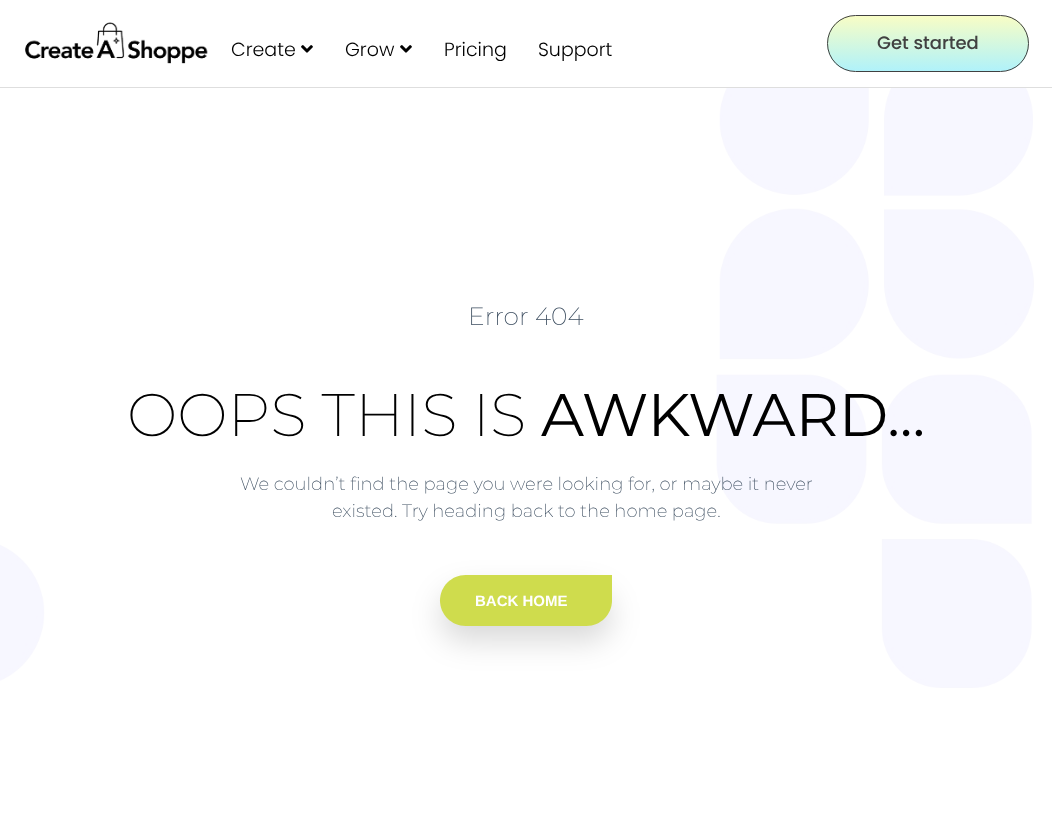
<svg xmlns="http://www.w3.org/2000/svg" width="1052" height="837">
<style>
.a{font:300 19px Poppins;fill:#000}
.b{font:500 18px Poppins;fill:#414141}
.c{font:200 25px Montserrat;fill:#3d4e60}
.d{font:200 60px Montserrat;fill:#000}
.e{font:60px Montserrat;fill:#000}
.f{font:200 18px Montserrat;fill:#3d4e60}
.g{font:bold 15px Liberation Sans;fill:#fff}
</style>
<defs>
<clipPath id="clip1"><rect x="827" y="15" width="202" height="57" rx="28.5"/></clipPath>
<linearGradient id="g1" gradientUnits="userSpaceOnUse" x1="928" y1="16" x2="928" y2="71"><stop offset="0" stop-color="#f8fdc5"/><stop offset="1" stop-color="#b0f2fa"/></linearGradient>
</defs>
<rect width="100%" height="100%" fill="#fff"/>
<path fill="#dedede" d="M0 87h1052v1H0z"/>
<image href="1.png" x="25" y="22" width="183" height="42"/>
<image href="2.png" x="301" y="45" width="12" height="8"/>
<image href="2.png" x="400" y="45" width="12" height="8"/>
<g clip-path="url(#clip1)">
<path fill="url(#g1)" d="M827 16h202v55H827z"/>
</g>
<rect fill="none" stroke="#414141" x="827.5" y="15.5" width="201" height="56" rx="28"/>
<image href="3.png" x="0" y="88" width="1034" height="600"/>
<rect fill="#00000026" filter="blur(15px)" x="440" y="590" width="172" height="51" rx="25.5"/>
<path fill="#cfdc4d" d="M465.5 575h146.5v25.5c0 14-11.5 25.5-25.5 25.5h-121c-14 0-25.5-11.5-25.5-25.5c0-14 11.5-25.5 25.5-25.5z"/>
<text class="a" x="231" y="56">Create</text>
<text class="a" x="345" y="56">Grow</text>
<text class="a" x="444" y="56">Pricing</text>
<text class="a" x="538" y="56">Support</text>
<text class="b" x="877" y="49">Get started</text>
<text class="c" x="468" y="325">Error 404</text>
<text class="d" x="127" y="436">OOPS THIS IS</text>
<text class="e" x="541" y="436">AWKWARD...</text>
<text class="f" x="240" y="490">We couldn’t find the page you were looking for, or maybe it never</text>
<text class="f" x="332" y="517">existed. Try heading back to the home page.</text>
<text class="g" x="475" y="606">BACK HOME</text>
</svg>
